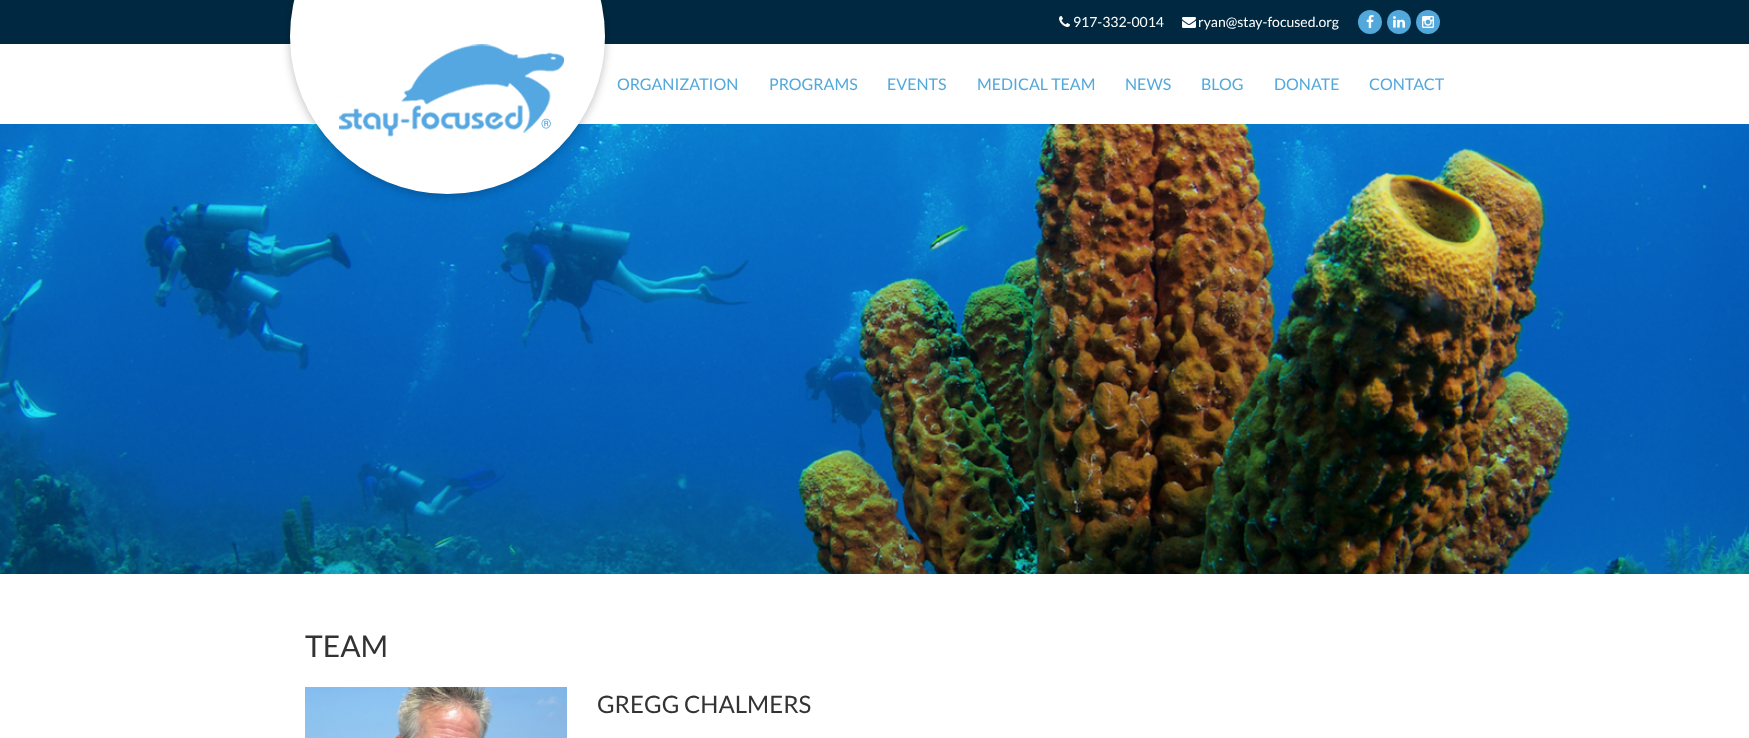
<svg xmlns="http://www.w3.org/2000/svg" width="1749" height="738">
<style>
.a{font:14px Lato;fill:#fff}
.b{font:16px Lato;fill:#53a8db}
.c{font:30px Lato;fill:#333}
.d{font:24px Lato;fill:#333}
</style>
<rect width="100%" height="100%" fill="#fff"/>
<path fill="#002941" d="M0 0h1749v44H0z"/>
<image href="1.png" x="1059" y="16" width="11" height="11"/>
<image href="2.png" x="1182" y="17" width="14" height="11"/>
<circle fill="#53a8db" cx="1370" cy="22" r="12"/>
<image href="3.png" x="1366" y="15" width="8" height="13"/>
<circle fill="#53a8db" cx="1399" cy="22" r="12"/>
<image href="4.png" x="1393" y="16" width="12" height="12"/>
<circle fill="#53a8db" cx="1428" cy="22" r="12"/>
<image href="5.png" x="1422" y="16" width="12" height="12"/>
<image href="7.png" x="0" y="124" width="1749" height="450"/>
<rect fill="#00000040" filter="blur(5px)" x="290" y="-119" width="315" height="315" rx="157.5"/>
<circle fill="#fff" cx="447.5" cy="36.5" r="157.5"/>
<image href="6.png" x="339" y="44" width="225" height="93"/>
<image href="8.png" x="305" y="687" width="262" height="51"/>
<text class="a" x="1073" y="27">917-332-0014</text>
<text class="a" x="1198" y="27">ryan@stay-focused.org</text>
<text class="b" x="617" y="90">ORGANIZATION</text>
<text class="b" x="769" y="90">PROGRAMS</text>
<text class="b" x="887" y="90">EVENTS</text>
<text class="b" x="977" y="90">MEDICAL TEAM</text>
<text class="b" x="1125" y="90">NEWS</text>
<text class="b" x="1201" y="90">BLOG</text>
<text class="b" x="1274" y="90">DONATE</text>
<text class="b" x="1369" y="90">CONTACT</text>
<text class="c" x="305" y="657">TEAM</text>
<text class="d" x="597" y="713">GREGG CHALMERS</text>
</svg>
